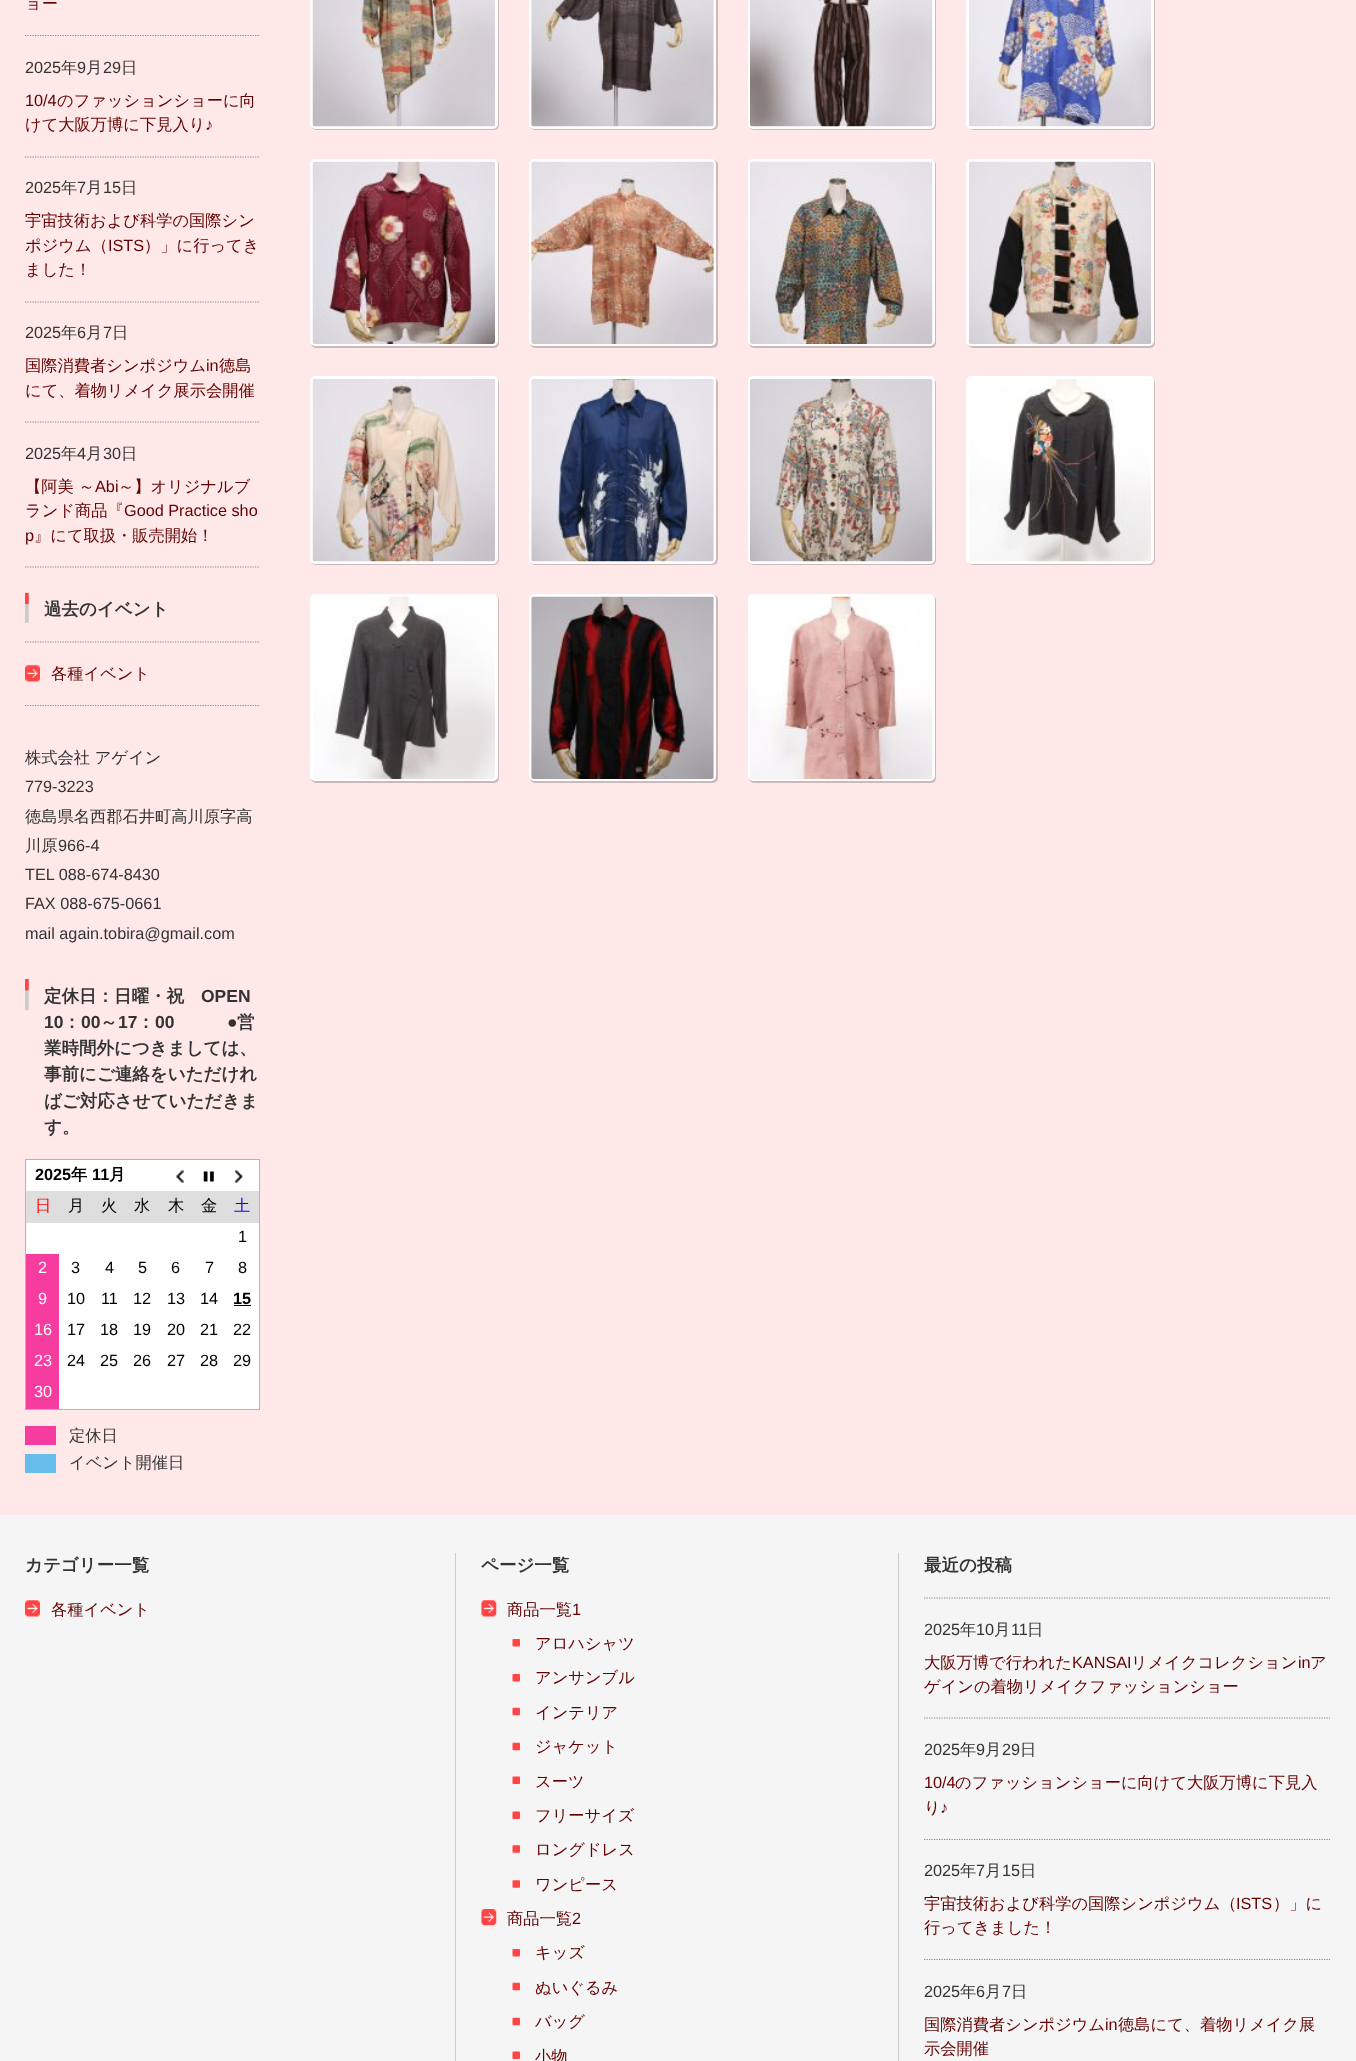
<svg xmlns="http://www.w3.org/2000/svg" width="1356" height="2061">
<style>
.a{font:500 16.25px WenQuanYi Zen Hei;fill:#640000}
.b{font:16.25px Liberation Sans;fill:#333}
.c{font:500 16.25px WenQuanYi Zen Hei;fill:#333}
.d{font:16.25px Liberation Sans;fill:#640000}
.e{font:bold 17.5px WenQuanYi Zen Hei;fill:#333}
.f{font:bold 17.5px Liberation Sans;fill:#333}
.g{font:bold 16.25px Liberation Sans;fill:#000}
.h{font:bold 16.25px WenQuanYi Zen Hei;fill:#000}
.i{font:500 16.25px WenQuanYi Zen Hei;fill:#f00}
.j{font:500 16.25px WenQuanYi Zen Hei;fill:#000}
.k{font:500 16.25px WenQuanYi Zen Hei;fill:#00f}
.l{font:16.25px Liberation Sans;fill:#000}
.m{font:16.25px Liberation Sans;fill:#fff}
</style>
<defs>
<clipPath id="clip1"><path d="M25 593h235v113H25z"/></clipPath>
</defs>
<rect width="100%" height="100%" fill="#ffe8e8"/>
<path fill="none" stroke="#888" stroke-width="1.2" stroke-dasharray="1.25 1.25" d="M25 35.5h235"/>
<path fill="none" stroke="#888" stroke-width="1.2" stroke-dasharray="1.25 1.25" d="M25 157h235"/>
<path fill="none" stroke="#888" stroke-width="1.2" stroke-dasharray="1.25 1.25" d="M25 302h235"/>
<path fill="none" stroke="#888" stroke-width="1.2" stroke-dasharray="1.25 1.25" d="M25 422h235"/>
<path fill="none" stroke="#888" stroke-width="1.2" stroke-dasharray="1.25 1.25" d="M25 567h235"/>
<image href="1.png" x="25" y="592" width="4" height="31"/>
<path fill="none" stroke="#888" stroke-width="1.2" stroke-dasharray="1.25 1.25" d="M25 642h235"/>
<image href="2.png" x="25" y="665" width="15" height="17"/>
<g clip-path="url(#clip1)">
<path fill="none" stroke="#888" stroke-width="1.2" stroke-dasharray="1.25 1.25" d="M25 705.5h235"/>
</g>
<image href="3.png" x="25" y="979" width="4" height="32"/>
<path fill="#fff" d="M26 1160h233v249H26z"/>
<path fill="#b5b5b6" d="M25 1159h235v1H25z"/>
<path fill="#b5b5b6" d="M259 1159h1v251H259z"/>
<path fill="#b5b5b6" d="M25 1409h235v1H25z"/>
<path fill="#b5b5b6" d="M25 1159h1v251H25z"/>
<image href="4.png" x="176" y="1170" width="8" height="13"/>
<image href="5.png" x="203" y="1171" width="11" height="11"/>
<image href="6.png" x="234" y="1170" width="9" height="13"/>
<path fill="#dedede" d="M26 1191h233v32H26z"/>
<path fill="#f63c9f" d="M26 1254h33v155H26z"/>
<path fill="#000" d="M234 1305h17v1H234z"/>
<path fill="#f63c9f" d="M25 1426h31v19H25z"/>
<path fill="#64bdeb" d="M25 1454h31v19H25z"/>
<rect fill="#00000033" filter="blur(0.5px)" x="311" y="-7" width="188" height="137" rx="5"/>
<rect fill="none" stroke="#fff" stroke-width="3" x="311.5" y="-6.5" width="185" height="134" rx="3.5"/>
<image href="7.png" x="312" y="0" width="183" height="127"/>
<rect fill="#00000033" filter="blur(0.5px)" x="530" y="-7" width="188" height="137" rx="5"/>
<rect fill="none" stroke="#fff" stroke-width="3" x="530.5" y="-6.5" width="184" height="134" rx="3.5"/>
<image href="8.png" x="531" y="0" width="183" height="127"/>
<rect fill="#00000033" filter="blur(0.5px)" x="749" y="-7" width="187" height="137" rx="5"/>
<rect fill="none" stroke="#fff" stroke-width="3" x="749.5" y="-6.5" width="184" height="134" rx="3.5"/>
<image href="9.png" x="750" y="0" width="183" height="127"/>
<rect fill="#00000033" filter="blur(0.5px)" x="968" y="-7" width="187" height="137" rx="5"/>
<rect fill="none" stroke="#fff" stroke-width="3" x="967.5" y="-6.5" width="185" height="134" rx="3.5"/>
<image href="10.png" x="969" y="0" width="182" height="127"/>
<rect fill="#00000033" filter="blur(0.5px)" x="311" y="160" width="188" height="188" rx="5"/>
<rect fill="none" stroke="#fff" stroke-width="3" x="311.5" y="160.5" width="185" height="184" rx="3.5"/>
<image href="11.png" x="312" y="161" width="183" height="183"/>
<rect fill="#00000033" filter="blur(0.5px)" x="530" y="160" width="188" height="188" rx="5"/>
<rect fill="none" stroke="#fff" stroke-width="3" x="530.5" y="160.5" width="184" height="184" rx="3.5"/>
<image href="12.png" x="531" y="161" width="183" height="183"/>
<rect fill="#00000033" filter="blur(0.5px)" x="749" y="160" width="187" height="188" rx="5"/>
<rect fill="none" stroke="#fff" stroke-width="3" x="749.5" y="160.5" width="184" height="184" rx="3.5"/>
<image href="13.png" x="750" y="161" width="183" height="183"/>
<rect fill="#00000033" filter="blur(0.5px)" x="968" y="160" width="187" height="188" rx="5"/>
<rect fill="none" stroke="#fff" stroke-width="3" x="967.5" y="160.5" width="185" height="184" rx="3.5"/>
<image href="14.png" x="969" y="161" width="183" height="183"/>
<rect fill="#00000033" filter="blur(0.5px)" x="311" y="378" width="188" height="187" rx="5"/>
<rect fill="none" stroke="#fff" stroke-width="3" x="311.5" y="377.5" width="185" height="185" rx="3.5"/>
<image href="15.png" x="312" y="379" width="183" height="183"/>
<rect fill="#00000033" filter="blur(0.5px)" x="530" y="378" width="188" height="187" rx="5"/>
<rect fill="none" stroke="#fff" stroke-width="3" x="530.5" y="377.5" width="184" height="185" rx="3.5"/>
<image href="16.png" x="531" y="379" width="183" height="183"/>
<rect fill="#00000033" filter="blur(0.5px)" x="749" y="378" width="187" height="187" rx="5"/>
<rect fill="none" stroke="#fff" stroke-width="3" x="749.5" y="377.5" width="184" height="185" rx="3.5"/>
<image href="17.png" x="750" y="379" width="183" height="183"/>
<rect fill="#00000033" filter="blur(0.5px)" x="968" y="378" width="187" height="187" rx="5"/>
<rect fill="none" stroke="#fff" stroke-width="3" x="967.5" y="377.5" width="185" height="185" rx="3.5"/>
<image href="18.png" x="969" y="379" width="182" height="183"/>
<rect fill="#00000033" filter="blur(0.5px)" x="311" y="595" width="188" height="188" rx="5"/>
<rect fill="none" stroke="#fff" stroke-width="3" x="311.5" y="595.5" width="185" height="184" rx="3.5"/>
<image href="19.png" x="313" y="596" width="182" height="183"/>
<rect fill="#00000033" filter="blur(0.5px)" x="530" y="595" width="188" height="188" rx="5"/>
<rect fill="none" stroke="#fff" stroke-width="3" x="530.5" y="595.5" width="184" height="184" rx="3.5"/>
<image href="20.png" x="531" y="596" width="183" height="183"/>
<rect fill="#00000033" filter="blur(0.5px)" x="749" y="595" width="187" height="188" rx="5"/>
<rect fill="none" stroke="#fff" stroke-width="3" x="749.5" y="595.5" width="184" height="184" rx="3.5"/>
<image href="21.png" x="750" y="596" width="183" height="183"/>
<path fill="#f5f5f5" d="M0 1515h1356v546H0z"/>
<path fill="#ccc" d="M455 1553h1v508H455z"/>
<image href="22.png" x="25" y="1600" width="15" height="17"/>
<path fill="#ccc" d="M898 1553h1v508H898z"/>
<image href="23.png" x="481" y="1600" width="16" height="17"/>
<image href="24.png" x="512" y="1639" width="8" height="8"/>
<image href="24.png" x="512" y="1674" width="8" height="8"/>
<image href="25.png" x="512" y="1707" width="8" height="9"/>
<image href="25.png" x="512" y="1742" width="8" height="9"/>
<image href="26.png" x="512" y="1776" width="8" height="8"/>
<image href="26.png" x="512" y="1811" width="8" height="8"/>
<image href="27.png" x="512" y="1845" width="8" height="8"/>
<image href="27.png" x="512" y="1880" width="8" height="8"/>
<image href="28.png" x="481" y="1909" width="16" height="17"/>
<image href="24.png" x="512" y="1949" width="8" height="8"/>
<image href="25.png" x="512" y="1982" width="8" height="9"/>
<image href="25.png" x="512" y="2017" width="8" height="9"/>
<image href="26.png" x="512" y="2051" width="8" height="8"/>
<path fill="none" stroke="#888" stroke-width="1.2" stroke-dasharray="1.25 1.25" d="M924 1598h406"/>
<path fill="none" stroke="#888" stroke-width="1.2" stroke-dasharray="1.25 1.25" d="M924 1718h406"/>
<path fill="none" stroke="#888" stroke-width="1.2" stroke-dasharray="1.25 1.25" d="M924 1839.5h406"/>
<path fill="none" stroke="#888" stroke-width="1.2" stroke-dasharray="1.25 1.25" d="M924 1959.5h406"/>
<text class="a" x="25" y="9">ョー</text>
<text class="b" x="25" y="73">2025</text>
<text class="c" x="61" y="73">年</text>
<text class="b" x="77" y="73">9</text>
<text class="c" x="86" y="73">月</text>
<text class="b" x="103" y="73">29</text>
<text class="c" x="121" y="73">日</text>
<text class="d" x="25" y="106">10/4</text>
<text class="a" x="57" y="106">のファッションショーに向</text>
<text class="a" x="25" y="130">けて大阪万博に下見入り</text>
<text class="d" x="205" y="130">♪</text>
<text class="b" x="25" y="193">2025</text>
<text class="c" x="61" y="193">年</text>
<text class="b" x="77" y="193">7</text>
<text class="c" x="86" y="193">月</text>
<text class="b" x="103" y="193">15</text>
<text class="c" x="121" y="193">日</text>
<text class="a" x="25" y="226">宇宙技術および科学の国際シン</text>
<text class="a" x="25" y="251">ポジウム（</text>
<text class="d" x="108" y="251">ISTS</text>
<text class="a" x="144" y="251">）」に行ってき</text>
<text class="a" x="25" y="275">ました！</text>
<text class="b" x="25" y="338">2025</text>
<text class="c" x="61" y="338">年</text>
<text class="b" x="77" y="338">6</text>
<text class="c" x="86" y="338">月</text>
<text class="b" x="103" y="338">7</text>
<text class="c" x="112" y="338">日</text>
<text class="a" x="25" y="371">国際消費者シンポジウム</text>
<text class="d" x="206" y="371">in</text>
<text class="a" x="219" y="371">徳島</text>
<text class="a" x="25" y="396">にて、着物リメイク展示会開催</text>
<text class="b" x="25" y="459">2025</text>
<text class="c" x="61" y="459">年</text>
<text class="b" x="77" y="459">4</text>
<text class="c" x="86" y="459">月</text>
<text class="b" x="103" y="459">30</text>
<text class="c" x="121" y="459">日</text>
<text class="a" x="25" y="492">【阿美 ～</text>
<text class="d" x="95" y="492">Abi</text>
<text class="a" x="118" y="492">～】オリジナルブ</text>
<text class="a" x="25" y="516">ランド商品『</text>
<text class="d" x="124" y="516">Good Practice sho</text>
<text class="d" x="25" y="541">p</text>
<text class="a" x="34" y="541">』にて取扱・販売開始！</text>
<text class="e" x="44" y="615">過去のイベント</text>
<text class="a" x="51" y="679">各種イベント</text>
<text class="c" x="25" y="763">株式会社 アゲイン</text>
<text class="b" x="25" y="792">779-3223</text>
<text class="c" x="25" y="822">徳島県名西郡石井町高川原字高</text>
<text class="c" x="25" y="851">川原</text>
<text class="b" x="58" y="851">966-4</text>
<text class="b" x="25" y="880">TEL 088-674-8430</text>
<text class="b" x="25" y="909">FAX 088-675-0661</text>
<text class="b" x="25" y="939">mail again.tobira@gmail.com</text>
<text class="e" x="44" y="1002">定休日：日曜・祝</text>
<text class="f" x="201" y="1002">OPEN</text>
<text class="f" x="44" y="1028">10</text>
<text class="e" x="63" y="1028">：</text>
<text class="f" x="81" y="1028">00</text>
<text class="e" x="100" y="1028">～</text>
<text class="f" x="118" y="1028">17</text>
<text class="e" x="137" y="1028">：</text>
<text class="f" x="155" y="1028">00</text>
<text class="f" x="227" y="1028">●</text>
<text class="e" x="237" y="1028">営</text>
<text class="e" x="44" y="1054">業時間外につきましては、</text>
<text class="e" x="44" y="1080">事前にご連絡をいただけれ</text>
<text class="e" x="44" y="1107">ばご対応させていただきま</text>
<text class="e" x="44" y="1133">す。</text>
<text class="g" x="35" y="1180">2025</text>
<text class="h" x="71" y="1180">年</text>
<text class="g" x="92" y="1180">11</text>
<text class="h" x="109" y="1180">月</text>
<text class="i" x="35" y="1211">日</text>
<text class="j" x="68" y="1211">月</text>
<text class="j" x="101" y="1211">火</text>
<text class="j" x="134" y="1211">水</text>
<text class="j" x="168" y="1211">木</text>
<text class="j" x="201" y="1211">金</text>
<text class="k" x="234" y="1211">土</text>
<text class="l" x="238" y="1242">1</text>
<text class="m" x="38" y="1273">2</text>
<text class="l" x="71" y="1273">3</text>
<text class="l" x="105" y="1273">4</text>
<text class="l" x="138" y="1273">5</text>
<text class="l" x="171" y="1273">6</text>
<text class="l" x="205" y="1273">7</text>
<text class="l" x="238" y="1273">8</text>
<text class="m" x="38" y="1304">9</text>
<text class="l" x="67" y="1304">10</text>
<text class="l" x="101" y="1304">11</text>
<text class="l" x="133" y="1304">12</text>
<text class="l" x="167" y="1304">13</text>
<text class="l" x="200" y="1304">14</text>
<text class="g" x="233" y="1304">15</text>
<text class="m" x="34" y="1335">16</text>
<text class="l" x="67" y="1335">17</text>
<text class="l" x="100" y="1335">18</text>
<text class="l" x="133" y="1335">19</text>
<text class="l" x="167" y="1335">20</text>
<text class="l" x="200" y="1335">21</text>
<text class="l" x="233" y="1335">22</text>
<text class="m" x="34" y="1366">23</text>
<text class="l" x="67" y="1366">24</text>
<text class="l" x="100" y="1366">25</text>
<text class="l" x="133" y="1366">26</text>
<text class="l" x="167" y="1366">27</text>
<text class="l" x="200" y="1366">28</text>
<text class="l" x="233" y="1366">29</text>
<text class="m" x="34" y="1397">30</text>
<text class="c" x="69" y="1441">定休日</text>
<text class="c" x="69" y="1468">イベント開催日</text>
<text class="e" x="25" y="1571">カテゴリー一覧</text>
<text class="a" x="51" y="1615">各種イベント</text>
<text class="e" x="481" y="1571">ページ一覧</text>
<text class="a" x="507" y="1615">商品一覧</text>
<text class="d" x="572" y="1615">1</text>
<text class="a" x="535" y="1649">アロハシャツ</text>
<text class="a" x="535" y="1683">アンサンブル</text>
<text class="a" x="535" y="1718">インテリア</text>
<text class="a" x="535" y="1752">ジャケット</text>
<text class="a" x="535" y="1787">スーツ</text>
<text class="a" x="535" y="1821">フリーサイズ</text>
<text class="a" x="535" y="1855">ロングドレス</text>
<text class="a" x="535" y="1890">ワンピース</text>
<text class="a" x="507" y="1924">商品一覧</text>
<text class="d" x="572" y="1924">2</text>
<text class="a" x="535" y="1958">キッズ</text>
<text class="a" x="535" y="1993">ぬいぐるみ</text>
<text class="a" x="535" y="2027">バッグ</text>
<text class="a" x="535" y="2062">小物</text>
<text class="e" x="924" y="1571">最近の投稿</text>
<text class="b" x="924" y="1635">2025</text>
<text class="c" x="960" y="1635">年</text>
<text class="b" x="976" y="1635">10</text>
<text class="c" x="994" y="1635">月</text>
<text class="b" x="1011" y="1635">11</text>
<text class="c" x="1027" y="1635">日</text>
<text class="a" x="924" y="1668">大阪万博で行われた</text>
<text class="d" x="1072" y="1668">KANSAI</text>
<text class="a" x="1131" y="1668">リメイクコレクション</text>
<text class="d" x="1298" y="1668">in</text>
<text class="a" x="1310" y="1668">ア</text>
<text class="a" x="924" y="1692">ゲインの着物リメイクファッションショー</text>
<text class="b" x="924" y="1755">2025</text>
<text class="c" x="960" y="1755">年</text>
<text class="b" x="976" y="1755">9</text>
<text class="c" x="985" y="1755">月</text>
<text class="b" x="1002" y="1755">29</text>
<text class="c" x="1020" y="1755">日</text>
<text class="d" x="924" y="1788">10/4</text>
<text class="a" x="955" y="1788">のファッションショーに向けて大阪万博に下見入</text>
<text class="a" x="924" y="1813">り</text>
<text class="d" x="940" y="1813">♪</text>
<text class="b" x="924" y="1876">2025</text>
<text class="c" x="960" y="1876">年</text>
<text class="b" x="976" y="1876">7</text>
<text class="c" x="985" y="1876">月</text>
<text class="b" x="1002" y="1876">15</text>
<text class="c" x="1020" y="1876">日</text>
<text class="a" x="924" y="1909">宇宙技術および科学の国際シンポジウム（</text>
<text class="d" x="1236" y="1909">ISTS</text>
<text class="a" x="1273" y="1909">）」に</text>
<text class="a" x="924" y="1933">行ってきました！</text>
<text class="b" x="924" y="1997">2025</text>
<text class="c" x="960" y="1997">年</text>
<text class="b" x="976" y="1997">6</text>
<text class="c" x="985" y="1997">月</text>
<text class="b" x="1002" y="1997">7</text>
<text class="c" x="1011" y="1997">日</text>
<text class="a" x="924" y="2030">国際消費者シンポジウム</text>
<text class="d" x="1105" y="2030">in</text>
<text class="a" x="1118" y="2030">徳島にて、着物リメイク展</text>
<text class="a" x="924" y="2054">示会開催</text>
</svg>
